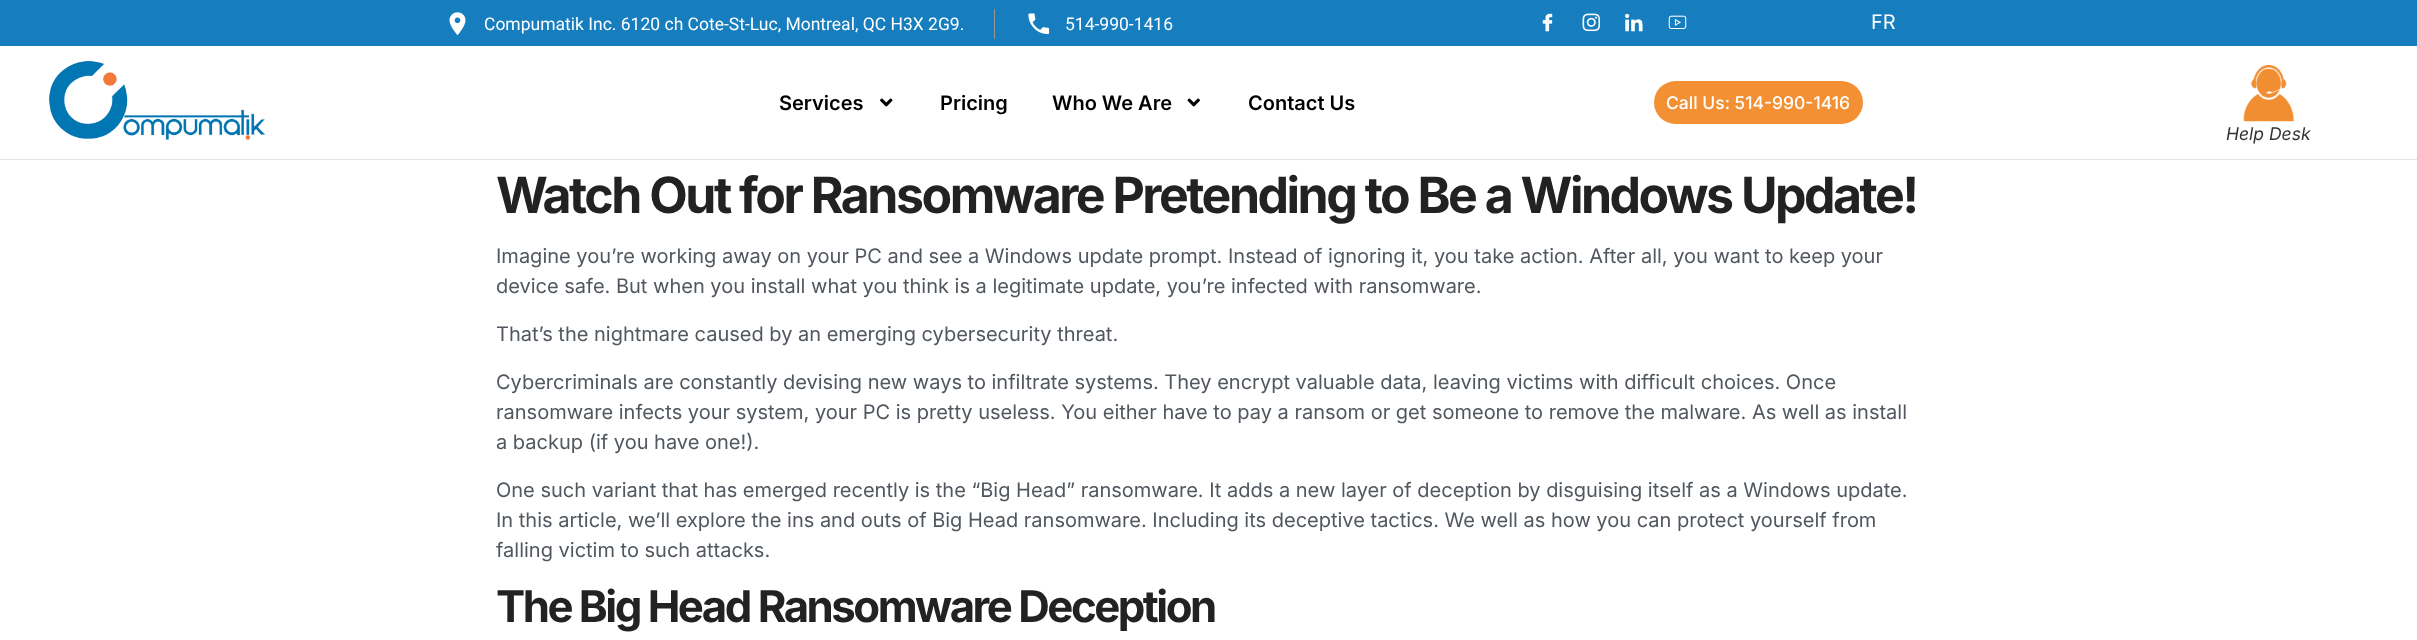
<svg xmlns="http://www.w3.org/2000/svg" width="2417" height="640">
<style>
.a{font:17.5px Roboto;fill:#fff}
.b{font:20px Inter;fill:#fff}
.c{font:600 20px Inter;fill:#000}
.d{font:500 17.5px Inter;fill:#fff}
.e{font:italic 17.5px Inter;fill:#333}
.f{font:bold 50px Inter;letter-spacing:-2.5px;fill:#222}
.g{font:20px Inter;fill:#50575e}
.h{font:bold 43.75px Inter;letter-spacing:-2.5px;fill:#222}
</style>
<rect width="100%" height="100%" fill="#fff"/>
<path fill="#167dbf" d="M0 0h2417v46H0z"/>
<image href="1.png" x="449" y="12" width="17" height="24"/>
<path fill="#969696" d="M994 9h1v30H994z"/>
<image href="2.png" x="1028" y="13" width="22" height="22"/>
<image href="3.png" x="1542" y="13" width="11" height="19"/>
<image href="4.png" x="1582" y="13" width="19" height="19"/>
<image href="5.png" x="1625" y="13" width="18" height="19"/>
<image href="6.png" x="1668" y="15" width="19" height="14"/>
<path fill="#e2e2e2" d="M0 159h2417v1H0z"/>
<image href="7.png" x="49" y="60" width="216" height="80"/>
<image href="8.png" x="880" y="98" width="13" height="9"/>
<image href="9.png" x="1187" y="98" width="13" height="9"/>
<rect fill="#f39033" x="1654" y="81" width="209" height="43" rx="21.5"/>
<image href="10.png" x="2243" y="65" width="51" height="57"/>
<text class="a" x="484" y="30">Compumatik Inc. 6120 ch Cote-St-Luc, Montreal, QC H3X 2G9.</text>
<text class="a" x="1065" y="30">514-990-1416</text>
<text class="b" x="1871" y="29">FR</text>
<text class="c" x="779" y="110">Services</text>
<text class="c" x="940" y="110">Pricing</text>
<text class="c" x="1052" y="110">Who We Are</text>
<text class="c" x="1248" y="110">Contact Us</text>
<text class="d" x="1666" y="109">Call Us: 514-990-1416</text>
<text class="e" x="2226" y="140">Help Desk</text>
<text class="f" x="496" y="213">Watch Out for Ransomware Pretending to Be a Windows Update!</text>
<text class="g" x="496" y="263">Imagine you’re working away on your PC and see a Windows update prompt. Instead of ignoring it, you take action. After all, you want to keep your</text>
<text class="g" x="496" y="293">device safe. But when you install what you think is a legitimate update, you’re infected with ransomware.</text>
<text class="g" x="496" y="341">That’s the nightmare caused by an emerging cybersecurity threat.</text>
<text class="g" x="496" y="389">Cybercriminals are constantly devising new ways to infiltrate systems. They encrypt valuable data, leaving victims with difficult choices. Once</text>
<text class="g" x="496" y="419">ransomware infects your system, your PC is pretty useless. You either have to pay a ransom or get someone to remove the malware. As well as install</text>
<text class="g" x="496" y="449">a backup (if you have one!).</text>
<text class="g" x="496" y="497">One such variant that has emerged recently is the “Big Head” ransomware. It adds a new layer of deception by disguising itself as a Windows update.</text>
<text class="g" x="496" y="527">In this article, we’ll explore the ins and outs of Big Head ransomware. Including its deceptive tactics. We well as how you can protect yourself from</text>
<text class="g" x="496" y="557">falling victim to such attacks.</text>
<text class="h" x="496" y="622">The Big Head Ransomware Deception</text>
</svg>
